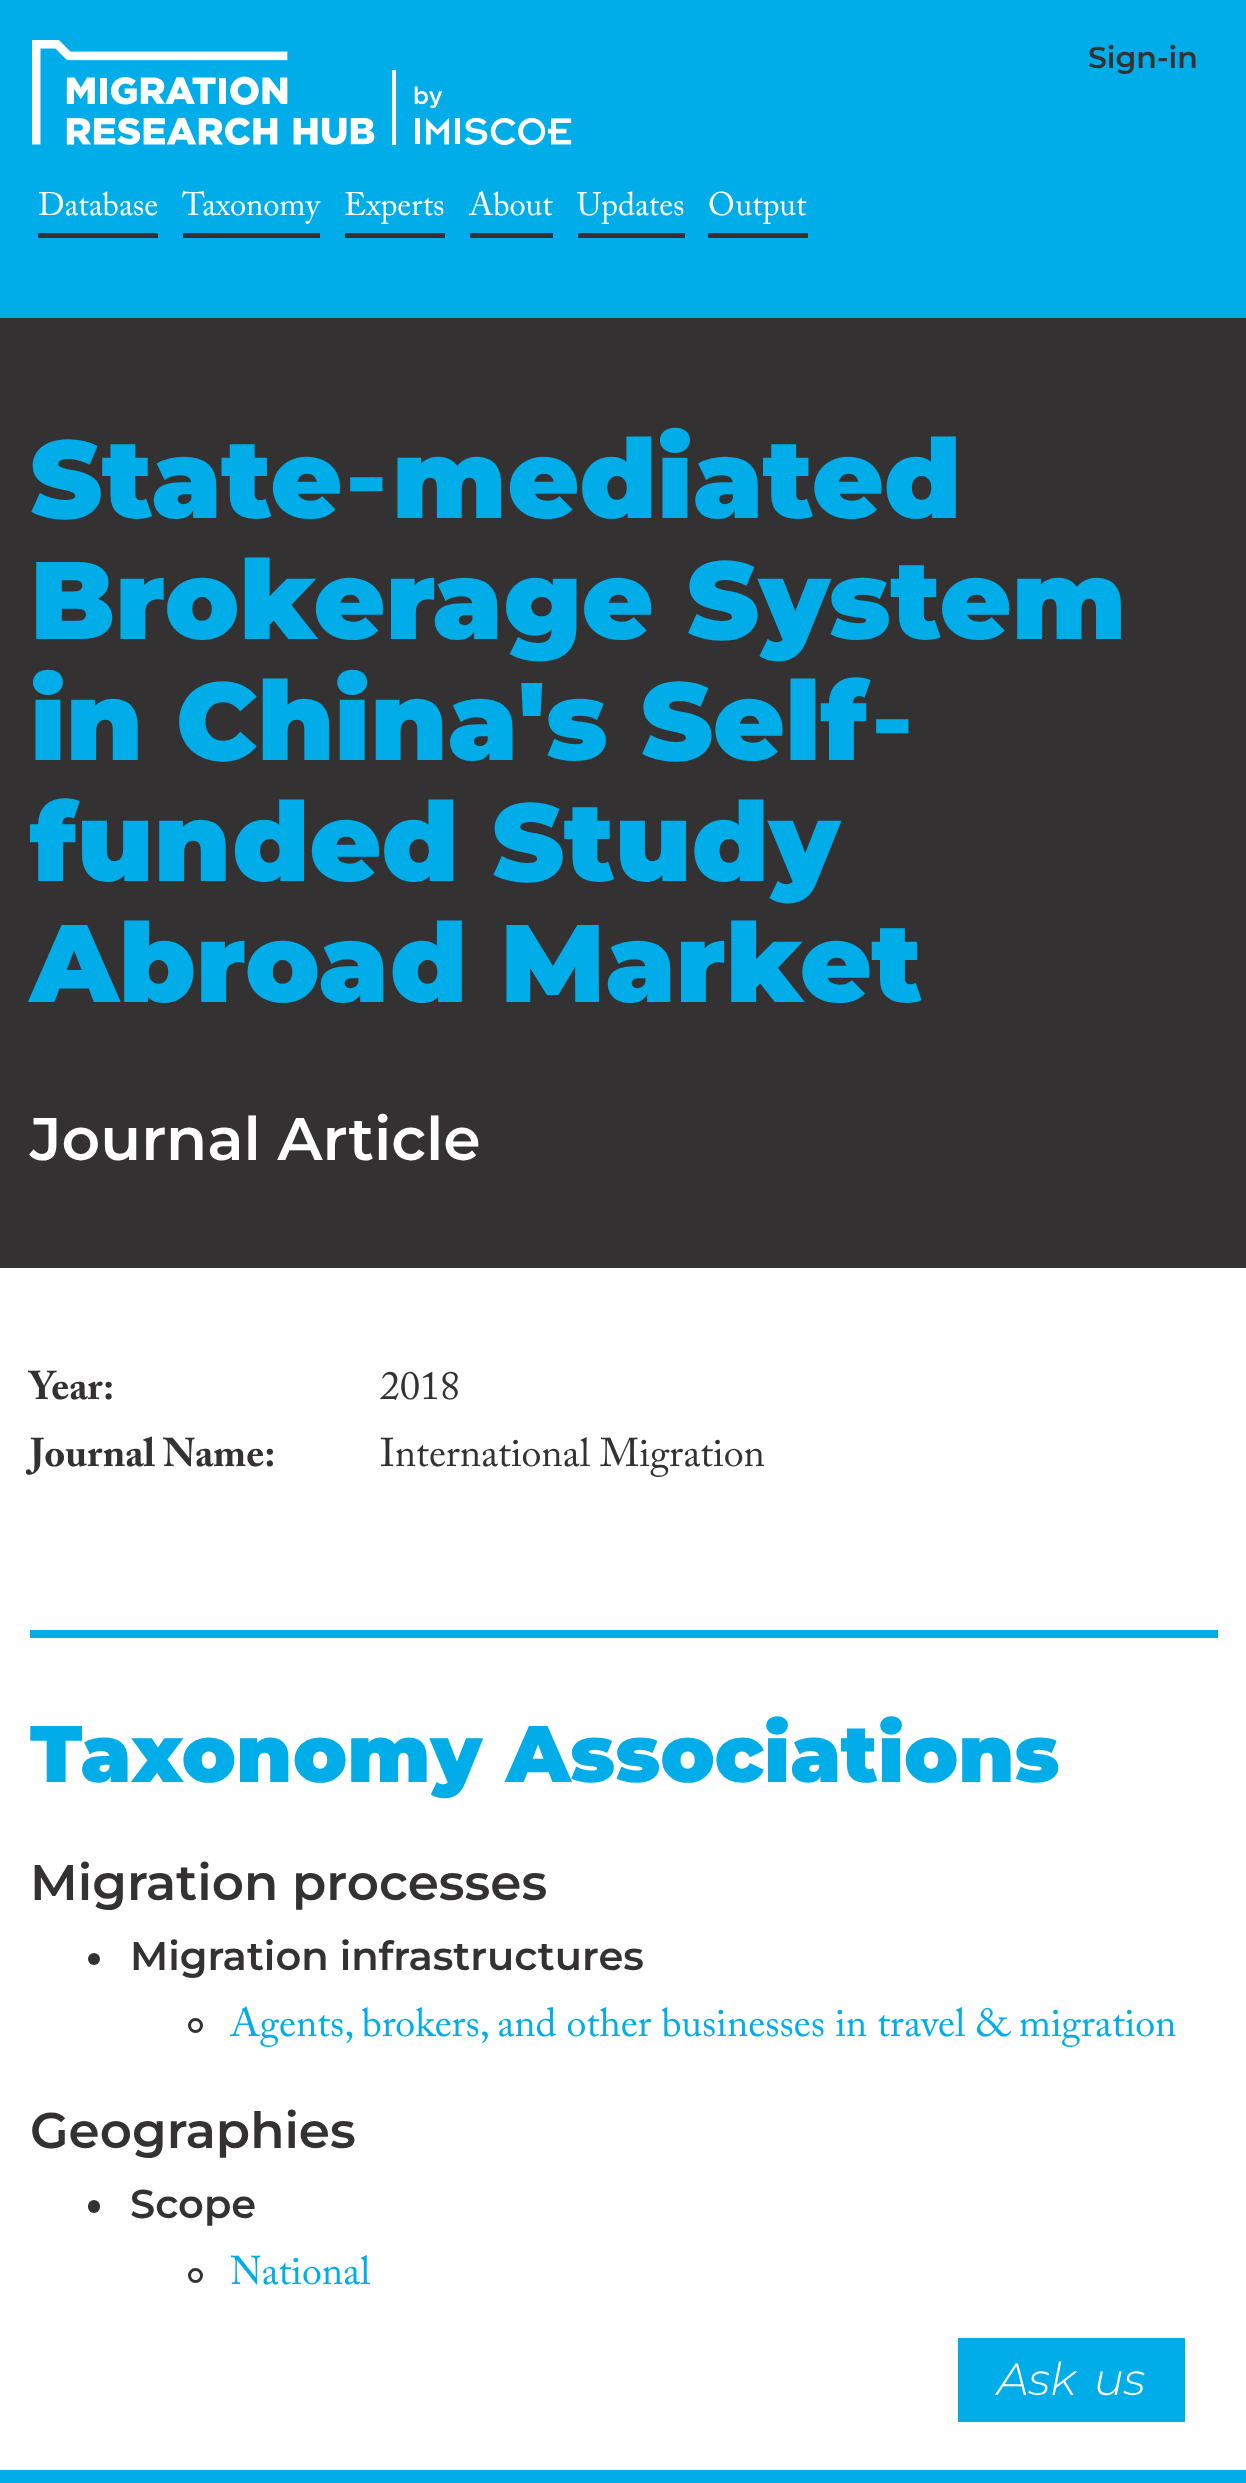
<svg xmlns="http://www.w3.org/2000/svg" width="1246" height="2483">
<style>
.a{font:600 30px Montserrat;fill:#333132}
.b{font:32.5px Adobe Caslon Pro;fill:#fff}
.c{font:900 110px Montserrat;fill:#00ade8}
.d{font:900 110px Roboto;fill:#00ade8}
.e{font:600 60px Montserrat;fill:#fff}
.f{font:bold 40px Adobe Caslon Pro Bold;fill:#333132}
.g{font:40px Adobe Caslon Pro;fill:#333132}
.h{font:900 80px Montserrat;fill:#00ade8}
.i{font:600 50px Montserrat;fill:#333132}
.j{font:600 40px Montserrat;fill:#333132}
.k{font:40px Adobe Caslon Pro;fill:#00ade8}
.l{font:italic 300 45px Montserrat;fill:#fff}
</style>
<rect width="100%" height="100%" fill="#00ade8"/>
<image href="1.png" x="32" y="40" width="540" height="105"/>
<path fill="#333132" d="M38 233h120v5H38z"/>
<path fill="#333132" d="M183 233h137v5H183z"/>
<path fill="#333132" d="M345 233h100v5H345z"/>
<path fill="#333132" d="M470 233h83v5H470z"/>
<path fill="#333132" d="M578 233h107v5H578z"/>
<path fill="#333132" d="M708 233h100v5H708z"/>
<path fill="#333132" d="M0 318h1246v950H0z"/>
<path fill="#fff" d="M0 1268h1246v1202H0z"/>
<path fill="#00ade8" d="M30 1630h1188v8H30z"/>
<circle fill="#333132" cx="94" cy="1959" r="6"/>
<circle fill="none" stroke="#333132" stroke-width="3" cx="195.5" cy="2025.5" r="6"/>
<rect fill="#333132" x="88" y="2200" width="12" height="13" rx="6"/>
<circle fill="none" stroke="#333132" stroke-width="3" cx="195.5" cy="2275.5" r="6"/>
<path fill="#00ade8" d="M958 2338h227v84H958z"/>
<text class="a" x="1088" y="68">Sign-in</text>
<text class="b" x="38" y="215">Database</text>
<text class="b" x="182" y="215">Taxonomy</text>
<text class="b" x="344" y="215">Experts</text>
<text class="b" x="469" y="215">About</text>
<text class="b" x="577" y="215">Updates</text>
<text class="b" x="708" y="215">Output</text>
<text class="c" x="30" y="518">State</text>
<text class="d" x="342" y="518">‐</text>
<text class="c" x="392" y="518">mediated</text>
<text class="c" x="30" y="639">Brokerage System</text>
<text class="c" x="30" y="760">in China's Self</text>
<text class="d" x="868" y="760">‐</text>
<text class="c" x="30" y="881">funded Study</text>
<text class="c" x="30" y="1002">Abroad Market</text>
<text class="e" x="30" y="1160">Journal Article</text>
<text class="f" x="30" y="1399">Year</text>
<text class="f" x="103" y="1399">:</text>
<text class="g" x="380" y="1399">2018</text>
<text class="f" x="30" y="1466">Journal Name:</text>
<text class="g" x="380" y="1466">International Migration</text>
<text class="h" x="30" y="1782">Taxonomy Associations</text>
<text class="i" x="30" y="1900">Migration processes</text>
<text class="j" x="130" y="1970">Migration infrastructures</text>
<text class="k" x="230" y="2036">Agents, brokers, and other businesses in travel &amp; migration</text>
<text class="i" x="30" y="2148">Geographies</text>
<text class="j" x="130" y="2218">Scope</text>
<text class="k" x="230" y="2284">National</text>
<text class="l" x="997" y="2395" word-spacing="6">Ask us</text>
</svg>
